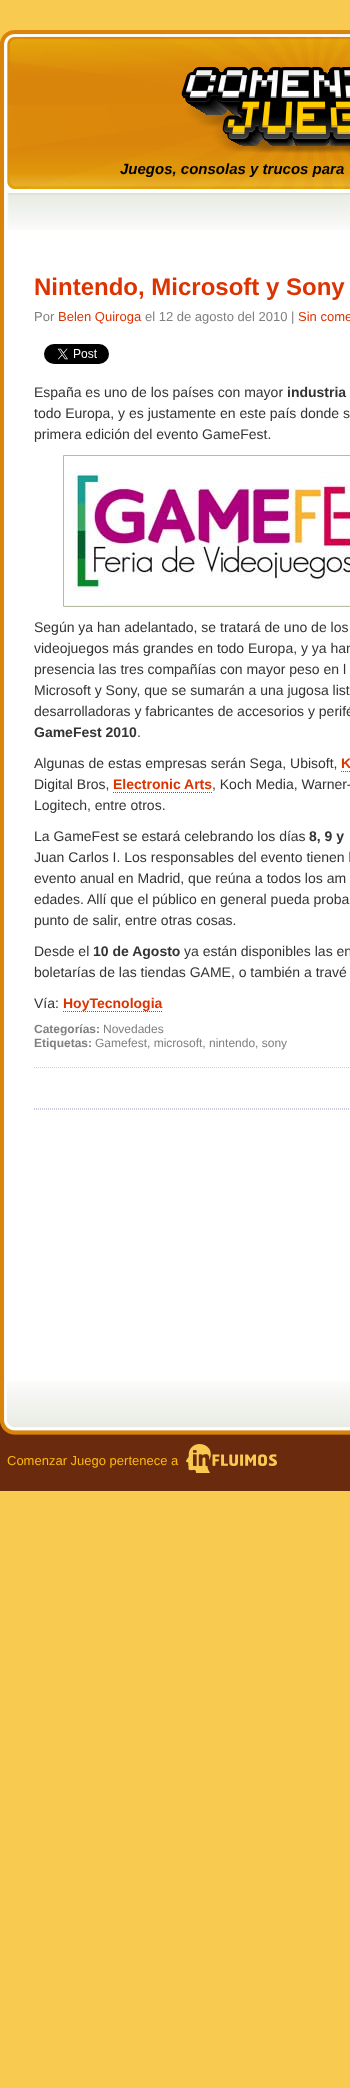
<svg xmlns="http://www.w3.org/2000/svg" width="350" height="2088">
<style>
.a{font:italic bold 15px Liberation Sans;fill:#000}
.b{font:bold 24px Liberation Sans;fill:#dc3300}
.c{font:13px Liberation Sans;fill:#7f7f7f}
.d{font:13px Liberation Sans;fill:#dc3300}
.e{font:14px Liberation Sans;fill:#333}
.f{font:bold 14px Liberation Sans;fill:#333}
.g{font:bold 14px Liberation Sans;fill:#dc3300}
.h{font:bold 12px Liberation Sans;fill:#7f7f7f}
.i{font:12px Liberation Sans;fill:#7f7f7f}
.j{font:13px Liberation Sans;fill:#ffb80b}
</style>
<rect width="100%" height="100%" fill="#f9ca50"/>
<image href="1.png" x="0" y="30" width="350" height="14"/>
<image href="2.png" x="0" y="44" width="350" height="1337"/>
<image href="3.png" x="7" y="44" width="343" height="145"/>
<image href="4.png" x="7" y="193" width="343" height="37"/>
<image href="5.png" x="44" y="344" width="65" height="20"/>
<path fill="none" stroke="#b4bca4" d="M63.5 455.5h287v151H63.5z"/>
<image href="6.png" x="64" y="472" width="286" height="134"/>
<path fill="none" stroke="#dc3300" stroke-dasharray="1 1" d="M341 771.5h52"/>
<path fill="none" stroke="#dc3300" stroke-dasharray="1 1" d="M113 792.5h99"/>
<path fill="none" stroke="#dc3300" stroke-dasharray="1 1" d="M63 1011.5h99"/>
<path fill="none" stroke="#cccddd" stroke-dasharray="1 1" d="M34 1067.5h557"/>
<path fill="none" stroke="#cccddd" stroke-dasharray="1 1" d="M34 1108.5h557"/>
<path fill="none" stroke="#cccddd" stroke-dasharray="1 1" d="M34 1109.5h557"/>
<image href="7.png" x="0" y="1381" width="350" height="110"/>
<image href="8.png" x="186" y="1444" width="91" height="29"/>
<text class="a" x="120" y="174">Juegos, consolas y trucos para</text>
<text class="b" x="34" y="295">Nintendo, Microsoft y Sony</text>
<text class="c" x="34" y="321">Por</text>
<text class="d" x="58" y="321">Belen Quiroga</text>
<text class="c" x="145" y="321">el 12 de agosto del 2010 |</text>
<text class="d" x="298" y="321">Sin come</text>
<text class="e" x="34" y="397">España es uno de los países con mayor</text>
<text class="f" x="287" y="397">industria</text>
<text class="e" x="34" y="418">todo Europa, y es justamente en este país donde s</text>
<text class="e" x="34" y="439">primera edición del evento GameFest.</text>
<text class="e" x="34" y="632">Según ya han adelantado, se tratará de uno de los</text>
<text class="e" x="34" y="653">videojuegos más grandes en todo Europa, y ya han</text>
<text class="e" x="34" y="674">presencia las tres compañías con mayor peso en l</text>
<text class="e" x="34" y="695">Microsoft y Sony, que se sumarán a una jugosa list</text>
<text class="e" x="34" y="716">desarrolladoras y fabricantes de accesorios y perifé</text>
<text class="f" x="34" y="737">GameFest 2010</text>
<text class="e" x="137" y="737">.</text>
<text class="e" x="34" y="768">Algunas de estas empresas serán Sega, Ubisoft,</text>
<text class="g" x="341" y="768">K</text>
<text class="e" x="34" y="789">Digital Bros,</text>
<text class="g" x="113" y="789">Electronic Arts</text>
<text class="e" x="212" y="789">, Koch Media, Warner-</text>
<text class="e" x="34" y="810">Logitech, entre otros.</text>
<text class="e" x="34" y="841">La GameFest se estará celebrando los días</text>
<text class="f" x="309" y="841">8, 9 y</text>
<text class="e" x="34" y="862">Juan Carlos I. Los responsables del evento tienen l</text>
<text class="e" x="34" y="883">evento anual en Madrid, que reúna a todos los am</text>
<text class="e" x="34" y="904">edades. Allí que el público en general pueda proba</text>
<text class="e" x="34" y="925">punto de salir, entre otras cosas.</text>
<text class="e" x="34" y="956">Desde el</text>
<text class="f" x="93" y="956">10 de Agosto</text>
<text class="e" x="184" y="956">ya están disponibles las en</text>
<text class="e" x="34" y="977">boletarías de las tiendas GAME, o también a travé</text>
<text class="e" x="34" y="1008">Vía:</text>
<text class="g" x="63" y="1008">HoyTecnologia</text>
<text class="h" x="34" y="1033">Categorías:</text>
<text class="i" x="103" y="1033">Novedades</text>
<text class="h" x="34" y="1047">Etiquetas:</text>
<text class="i" x="95" y="1047">Gamefest, microsoft, nintendo, sony</text>
<text class="j" x="7" y="1465">Comenzar Juego pertenece a</text>
</svg>
